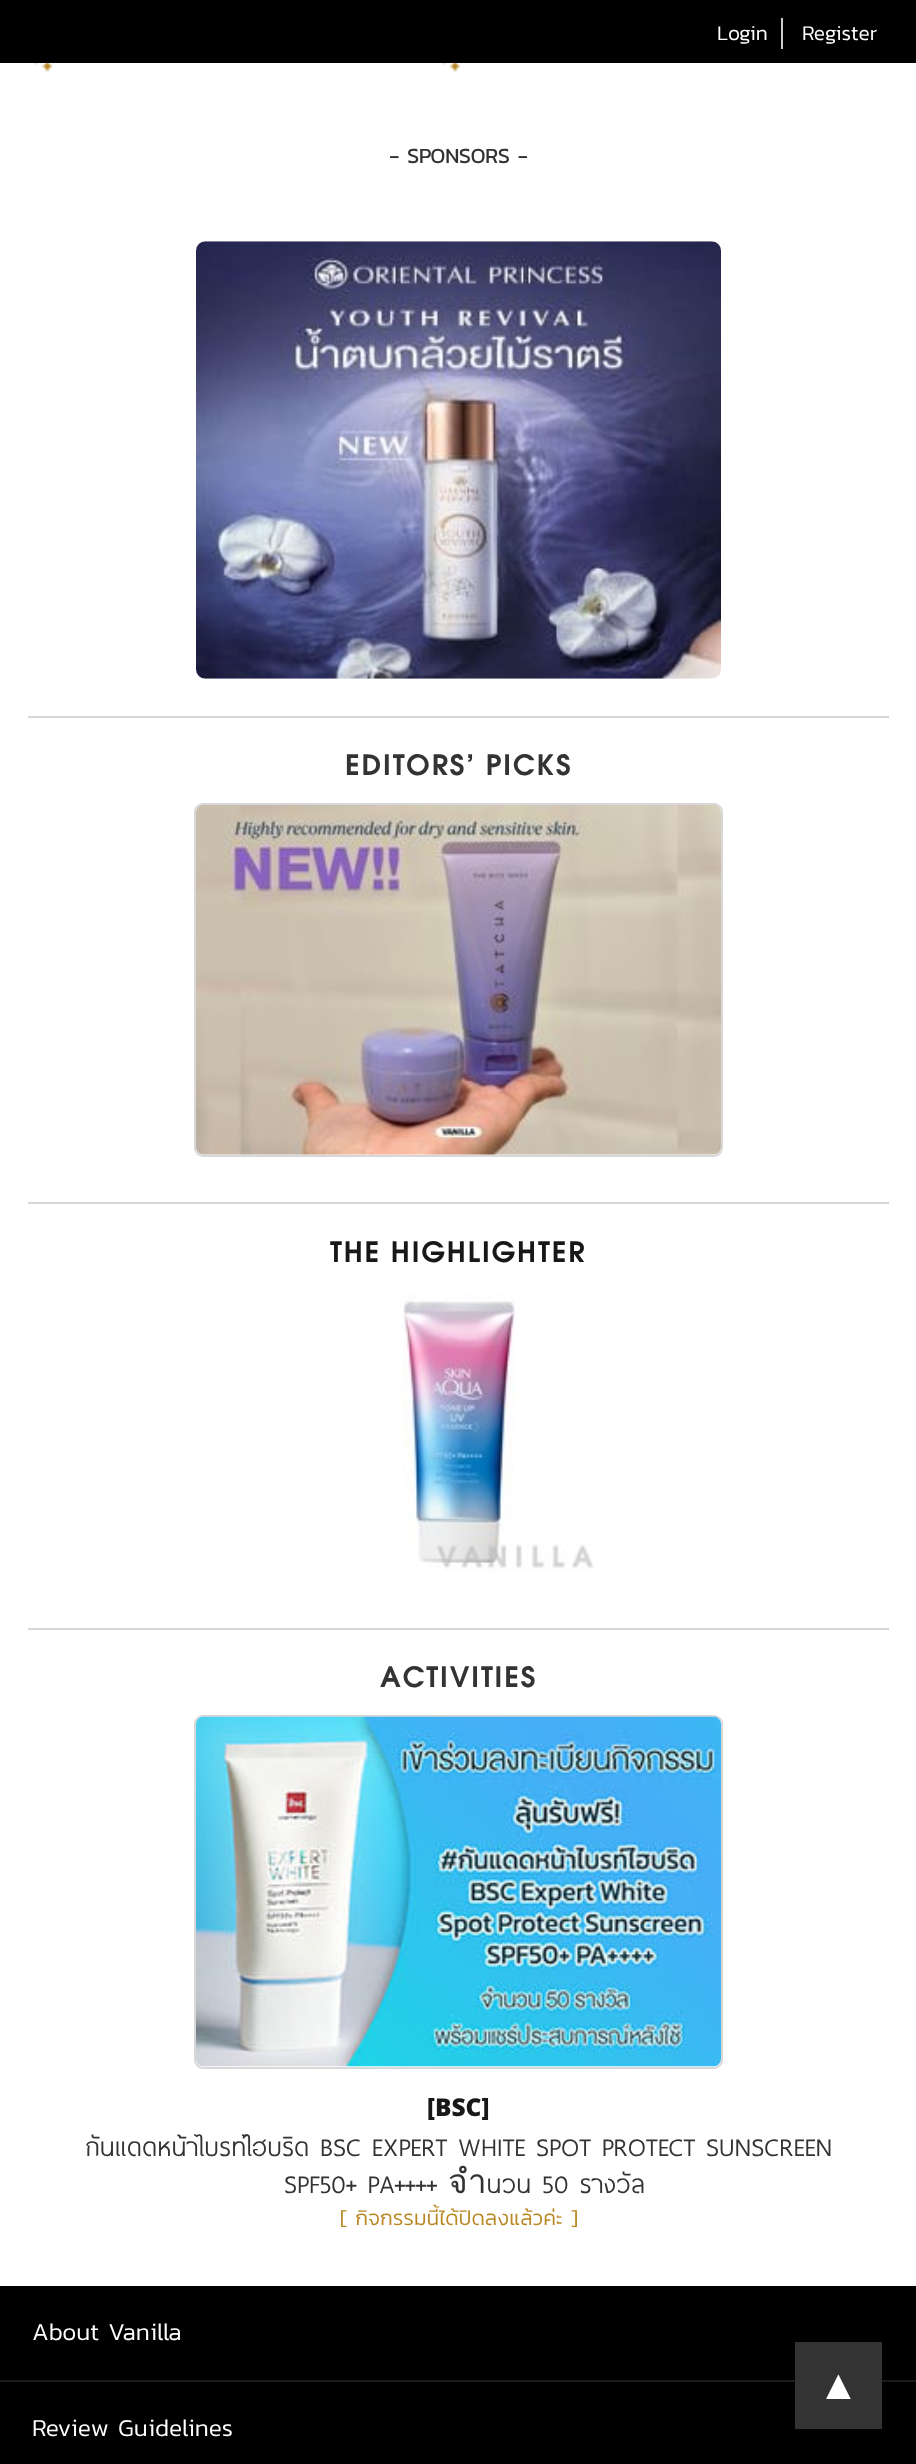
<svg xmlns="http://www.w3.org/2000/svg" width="916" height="2464">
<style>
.a{font:300 21px Kanit;fill:#fff}
.b{font:bold 21px Kanit;fill:#333}
.c{font:bold 28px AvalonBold;letter-spacing:1.9px;fill:#333}
.d{font:bold 28px AvalonBold;letter-spacing:1.9px;fill:#181818}
.e{font:800 24.5px Open Sans;fill:#181818}
.f{font:33.6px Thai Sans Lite;fill:#333}
.g{font:300 21px Kanit;fill:#b98822}
.h{font:300 24.5px Kanit;fill:#fff}
.i{font:300 42px Kanit;fill:#fff}
</style>
<rect width="100%" height="100%" fill="#fff"/>
<path fill="#000" d="M0 0h916v63H0z"/>
<path fill="#ccc" d="M781 18h2v31H781z"/>
<image href="1.png" x="28" y="63" width="25" height="10"/>
<image href="2.png" x="435" y="63" width="26" height="10"/>
<image href="3.png" x="196" y="241" width="525" height="438"/>
<path fill="#d8d8d8" d="M28 716h861v2H28z"/>
<rect fill="none" stroke="#d8d8d8" stroke-width="2" x="195" y="804" width="527" height="352" rx="8"/>
<image href="4.png" x="196" y="805" width="525" height="350"/>
<path fill="#d8d8d8" d="M28 1202h861v2H28z"/>
<image href="5.png" x="402" y="1293" width="192" height="278"/>
<path fill="#d8d8d8" d="M28 1628h861v2H28z"/>
<rect fill="none" stroke="#d8d8d8" stroke-width="2" x="195" y="1716" width="527" height="352" rx="8"/>
<image href="6.png" x="196" y="1716" width="525" height="351"/>
<path fill="#000" d="M0 2286h916v178H0z"/>
<path fill="#1b1b1b" d="M0 2380h916v2H0z"/>
<path fill="#333" d="M795 2342h87v87H795z"/>
<text class="a" x="717" y="40">Login</text>
<text class="a" x="802" y="40">Register</text>
<text class="b" x="389" y="163">- SPONSORS -</text>
<text class="c" x="345" y="775">EDITORS’ PICKS</text>
<text class="d" x="330" y="1262">THE HIGHLIGHTER</text>
<text class="c" x="380" y="1687">ACTIVITIES</text>
<text class="e" x="427" y="2116">[BSC]</text>
<text class="f" x="85" y="2156">กันแดดหน้าไบรท์ไฮบริด BSC EXPERT WHITE SPOT PROTECT SUNSCREEN</text>
<text class="f" x="284" y="2193">SPF50+ PA++++ จำนวน 50 รางวัล</text>
<text class="g" x="340" y="2225">[ กิจกรรมนี้ได้ปิดลงแล้วค่ะ ]</text>
<text class="h" x="32" y="2340">About Vanilla</text>
<text class="h" x="32" y="2436">Review Guidelines</text>
<text class="i" x="824" y="2399">▲</text>
</svg>
